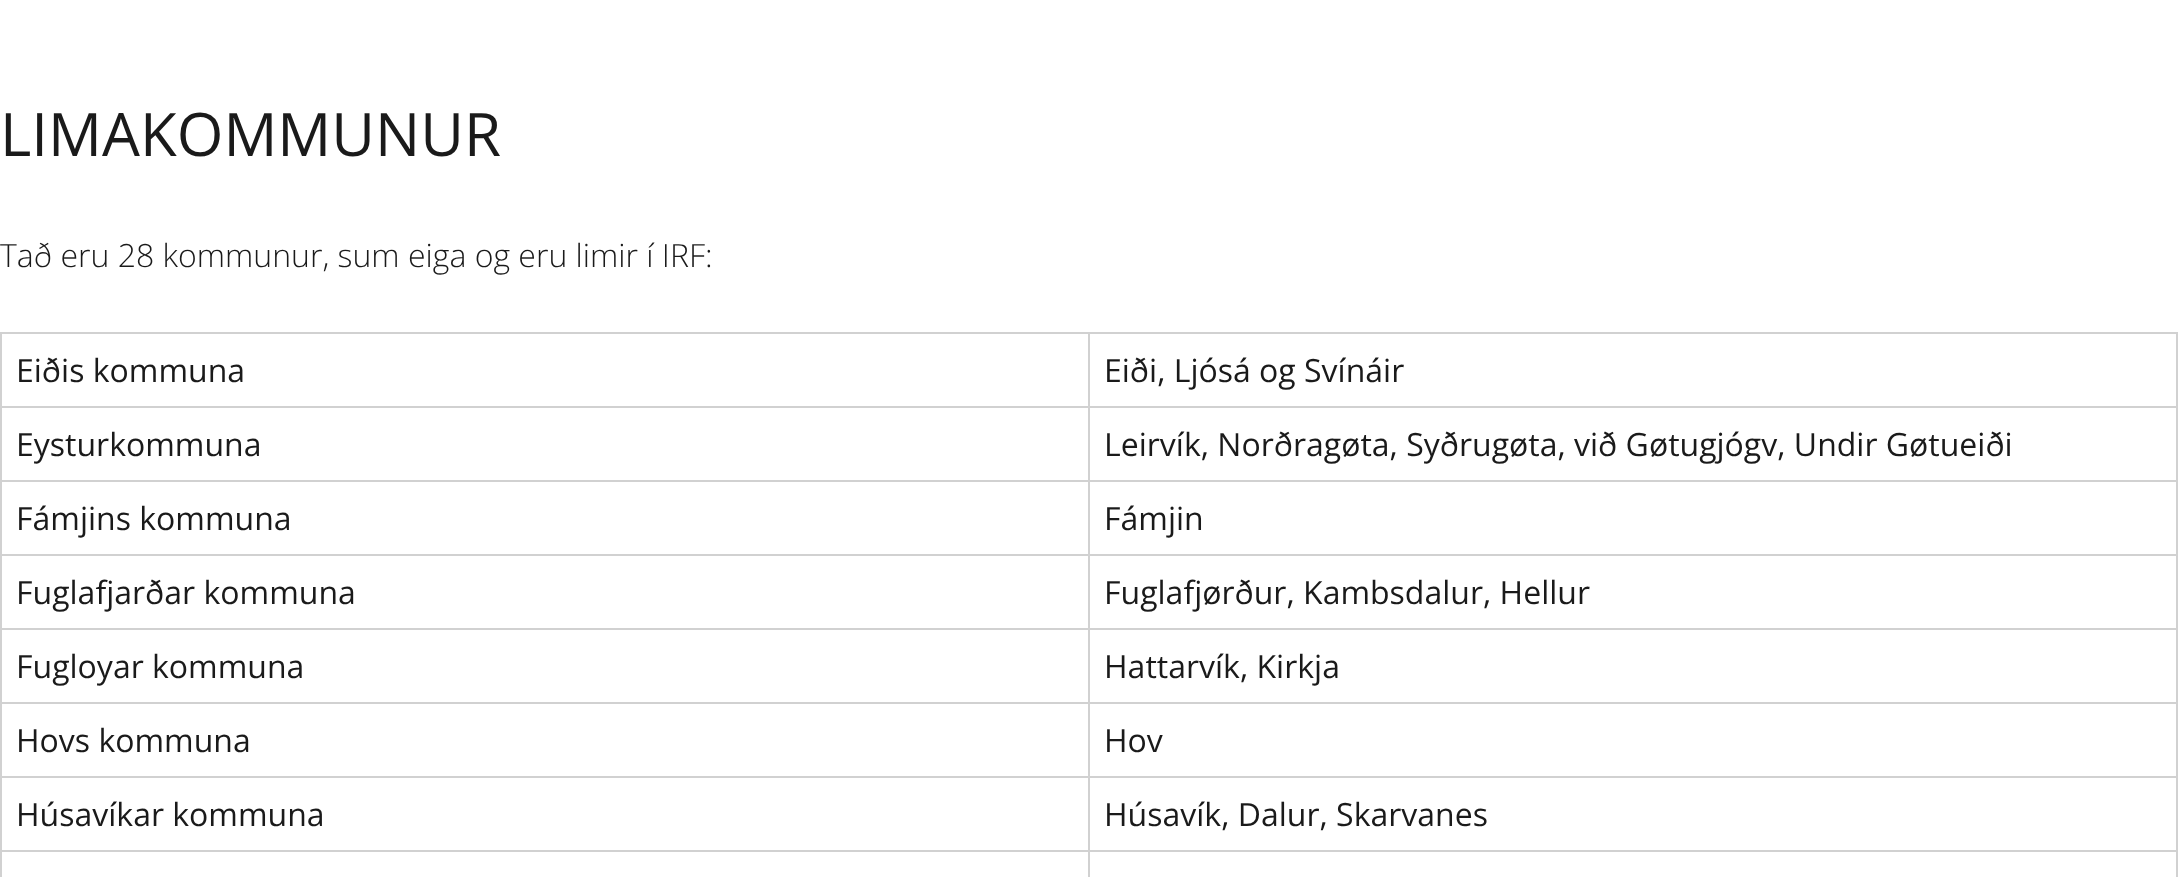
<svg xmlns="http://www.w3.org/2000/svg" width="2178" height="877">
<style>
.a{font:60px Open Sans;fill:#1a1a1a}
.b{font:300 32px Open Sans;fill:#1a1a1a}
.c{font:32px Open Sans;fill:#1a1a1a}
</style>
<rect width="100%" height="100%" fill="#fff"/>
<path fill="#d1d1d1" d="M0 332h2178v2H0z"/>
<path fill="#d1d1d1" d="M0 332h2v545H0z"/>
<path fill="#d1d1d1" d="M1088 334h2v543H1088z"/>
<path fill="#d1d1d1" d="M2 406h1088v2H2z"/>
<path fill="#d1d1d1" d="M2176 334h2v543H2176z"/>
<path fill="#d1d1d1" d="M1090 406h1088v2H1090z"/>
<path fill="#d1d1d1" d="M2 480h2176v2H2z"/>
<path fill="#d1d1d1" d="M2 554h2176v2H2z"/>
<path fill="#d1d1d1" d="M2 628h2176v2H2z"/>
<path fill="#d1d1d1" d="M2 702h2176v2H2z"/>
<path fill="#d1d1d1" d="M2 776h2176v2H2z"/>
<path fill="#d1d1d1" d="M2 850h2176v2H2z"/>
<text class="a" x="0" y="156">LIMAKOMMUNUR</text>
<text class="b" x="0" y="267">Tað eru 28 kommunur, sum eiga og eru limir í IRF:</text>
<text class="c" x="16" y="382">Eiðis kommuna</text>
<text class="c" x="1104" y="382">Eiði, Ljósá og Svínáir</text>
<text class="c" x="16" y="456">Eysturkommuna</text>
<text class="c" x="1104" y="456">Leirvík, Norðragøta, Syðrugøta, við Gøtugjógv, Undir Gøtueiði</text>
<text class="c" x="16" y="530">Fámjins kommuna</text>
<text class="c" x="1104" y="530">Fámjin</text>
<text class="c" x="16" y="604">Fuglafjarðar kommuna</text>
<text class="c" x="1104" y="604">Fuglafjørður, Kambsdalur, Hellur</text>
<text class="c" x="16" y="678">Fugloyar kommuna</text>
<text class="c" x="1104" y="678">Hattarvík, Kirkja</text>
<text class="c" x="16" y="752">Hovs kommuna</text>
<text class="c" x="1104" y="752">Hov</text>
<text class="c" x="16" y="826">Húsavíkar kommuna</text>
<text class="c" x="1104" y="826">Húsavík, Dalur, Skarvanes</text>
</svg>
